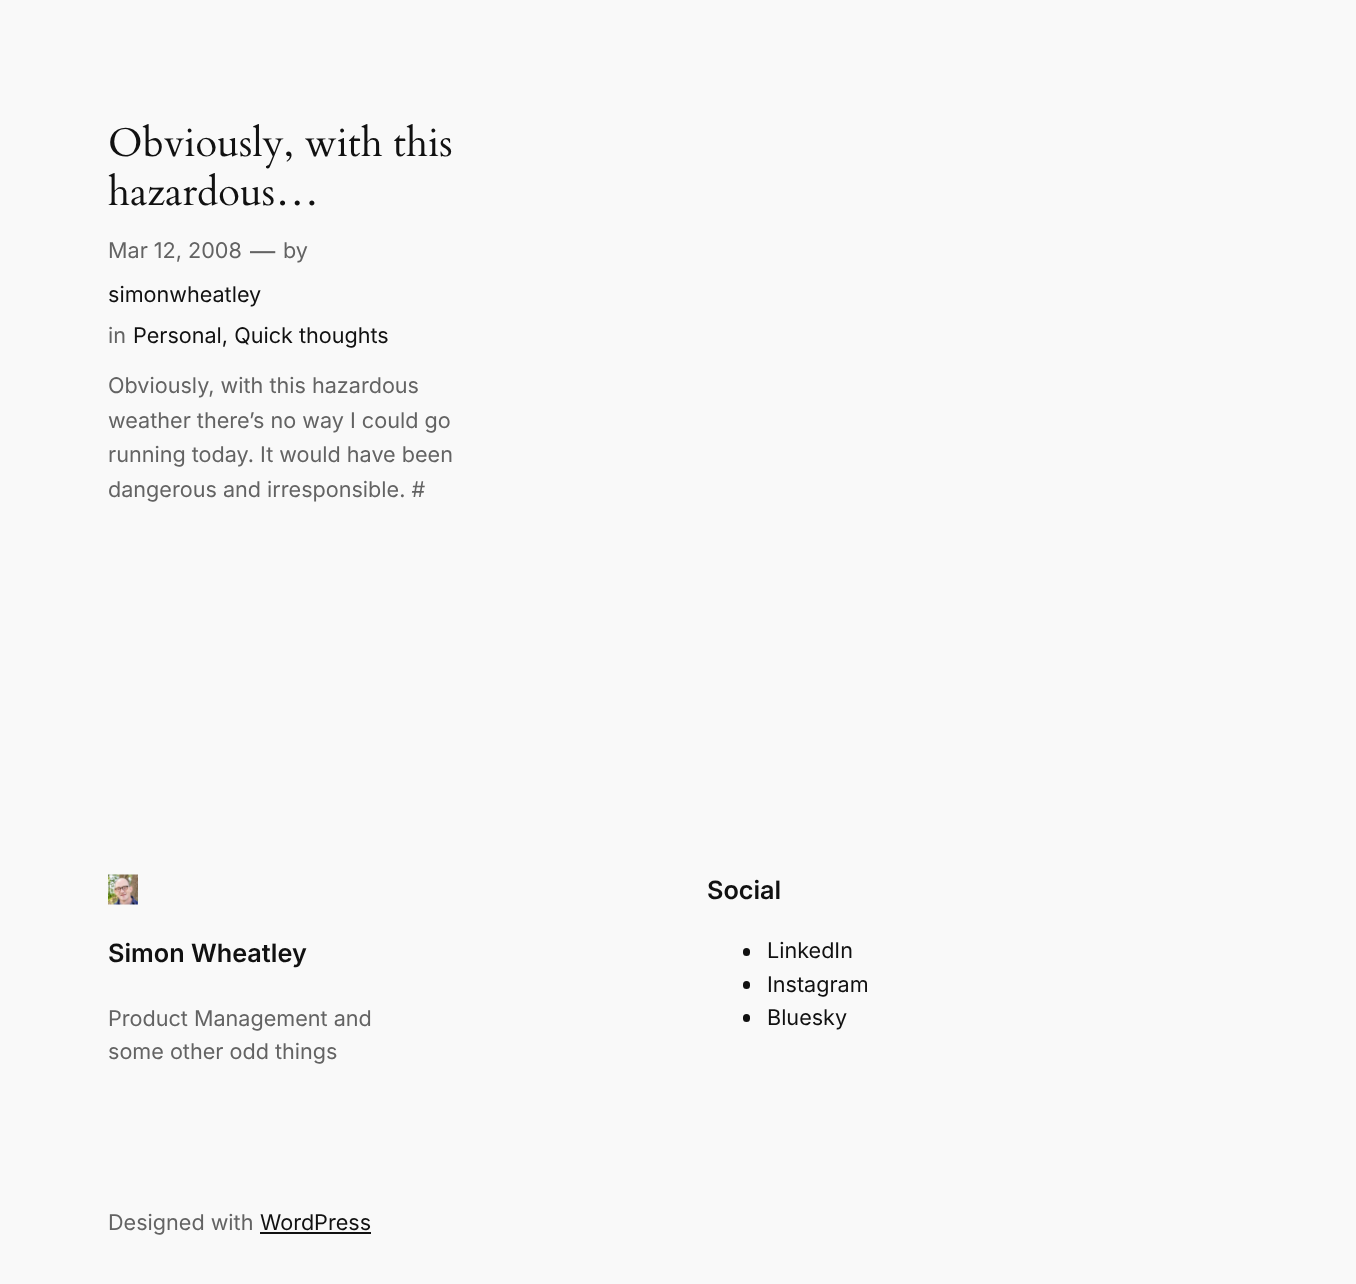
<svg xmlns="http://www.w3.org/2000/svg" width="1356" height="1284">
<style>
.a{font:40px Cardo;fill:#111}
.b{font:21.6px Inter;fill:#636363}
.c{font:25.25px Inter;fill:#636363}
.d{font:21.6px Inter;fill:#111}
.e{font:600 25.25px Inter;fill:#111}
</style>
<rect width="100%" height="100%" fill="#f9f9f9"/>
<image href="1.png" x="108" y="874" width="30" height="31"/>
<rect fill="#111" x="743" y="948" width="7" height="8" rx="3.5"/>
<rect fill="#111" x="743" y="981" width="7" height="8" rx="3.5"/>
<rect fill="#111" x="743" y="1014" width="7" height="8" rx="3.5"/>
<path fill="#111" d="M260 1232h111v2H260z"/>
<text class="a" x="108" y="156">Obviously, with this</text>
<text class="a" x="108" y="205">hazardous…</text>
<text class="b" x="108" y="258">Mar 12, 2008</text>
<text class="c" x="250" y="260">—</text>
<text class="b" x="283" y="258">by</text>
<text class="d" x="108" y="302">simonwheatley</text>
<text class="b" x="108" y="343">in</text>
<text class="d" x="133" y="343">Personal, Quick thoughts</text>
<text class="b" x="108" y="393">Obviously, with this hazardous</text>
<text class="b" x="108" y="428">weather there’s no way I could go</text>
<text class="b" x="108" y="462">running today. It would have been</text>
<text class="b" x="108" y="497">dangerous and irresponsible. #</text>
<text class="e" x="108" y="962">Simon Wheatley</text>
<text class="b" x="108" y="1026">Product Management and</text>
<text class="b" x="108" y="1059">some other odd things</text>
<text class="e" x="707" y="899">Social</text>
<text class="d" x="767" y="958">LinkedIn</text>
<text class="d" x="767" y="992">Instagram</text>
<text class="d" x="767" y="1025">Bluesky</text>
<text class="b" x="108" y="1230">Designed with</text>
<text class="d" x="260" y="1230">WordPress</text>
</svg>
